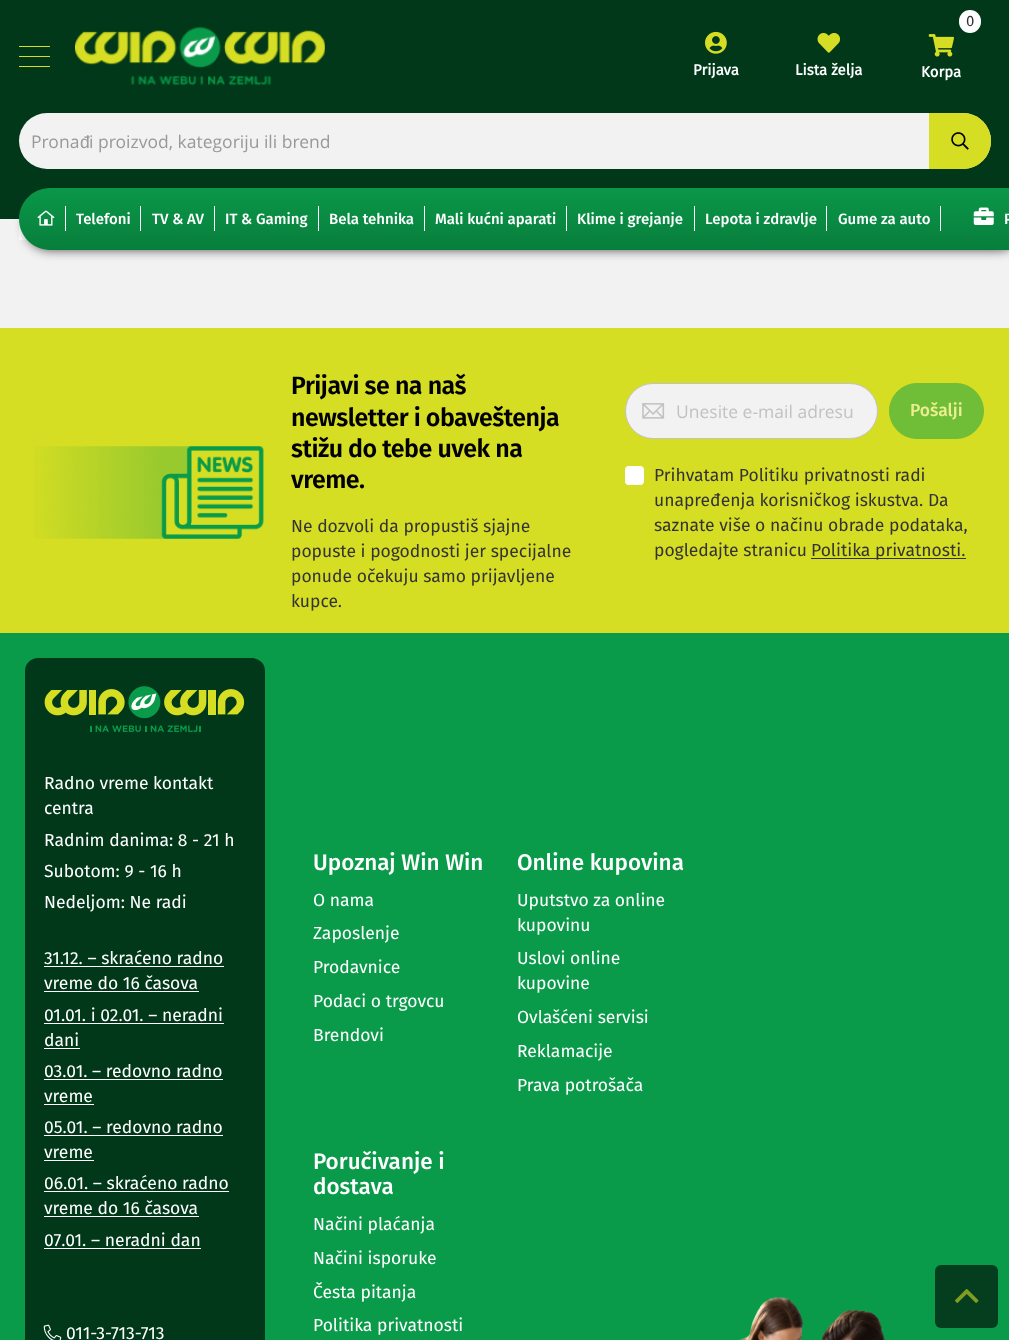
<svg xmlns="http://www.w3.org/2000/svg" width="1009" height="1340">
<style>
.a{font:15px Fira Sans;fill:#333}
.b{font:bold 15px Fira Sans;fill:#fff}
.c{font:17.5px Open Sans;fill:#999}
.d{font:17.5px Liberation Sans;fill:#999}
.e{font:500 15px Fira Sans;fill:#fff}
.f{font:600 25px Fira Sans;letter-spacing:-0.5px;fill:#000}
.g{font:17.5px Fira Sans;fill:#333}
.h{font:17.5px Open Sans;fill:#c2c2c2}
.i{font:500 17.5px Fira Sans;fill:#ebef91}
.j{font:17.5px Fira Sans;fill:#fff}
.k{font:500 22.5px Fira Sans;fill:#fff}
</style>
<defs>
<linearGradient id="g1" gradientUnits="userSpaceOnUse" x1="524" y1="187" x2="524" y2="250"><stop offset="0" stop-color="#0a9849"/><stop offset="1" stop-color="#087e3c"/></linearGradient>
</defs>
<rect width="100%" height="100%" fill="#f2f2f2"/>
<path fill="#fff" d="M19 219h9v21H19z"/>
<path fill="#003819" d="M0 0h1009v219H0z"/>
<path fill="#d6de23" d="M19 46h31v1H19z"/>
<path fill="#d6de23" d="M19 66h31v1H19z"/>
<path fill="#d6de23" d="M19 56h31v1H19z"/>
<image href="1.png" x="75" y="27" width="250" height="59"/>
<rect fill="#fff" x="959" y="10" width="22" height="23" rx="11"/>
<image href="2.png" x="928" y="34" width="26" height="23"/>
<image href="3.png" x="705" y="31" width="22" height="23"/>
<image href="4.png" x="817" y="33" width="23" height="20"/>
<rect fill="#f2f2f2" x="19" y="113" width="972" height="56" rx="28"/>
<path fill="#d6de23" d="M929 113h34c15.5 0 28 12.5 28 28c0 15.5-12.5 28-28 28h-34z"/>
<image href="5.png" x="951" y="132" width="18" height="18"/>
<rect fill="#4d4c4d" filter="blur(5.5px)" x="25" y="200" width="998" height="50" rx="25"/>
<path fill="url(#g1)" d="M50 188h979v62h-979c-17 0-31-14-31-31c0-17 14-31 31-31z"/>
<path fill="#fff" d="M65 206h1v25H65z"/>
<image href="6.png" x="37" y="210" width="18" height="16"/>
<path fill="#fff" d="M140 206h1v25H140z"/>
<path fill="#fff" d="M214 206h1v25H214z"/>
<path fill="#fff" d="M318 206h1v25H318z"/>
<path fill="#fff" d="M424 206h1v25H424z"/>
<path fill="#fff" d="M566 206h1v25H566z"/>
<path fill="#fff" d="M694 206h1v25H694z"/>
<path fill="#fff" d="M826 206h1v25H826z"/>
<path fill="#fff" d="M940 206h1v25H940z"/>
<image href="7.png" x="973" y="207" width="21" height="18"/>
<path fill="#0a9b4a" d="M0 633h1009v707H0z"/>
<path fill="#d6de23" d="M0 328h1009v305H0z"/>
<image href="8.png" x="34" y="446" width="230" height="93"/>
<rect fill="#f2f2f2" stroke="#c2c2c2" x="625.5" y="383.5" width="252" height="55" rx="27.5"/>
<image href="9.png" x="642" y="403" width="23" height="16"/>
<rect fill="#70bd37" stroke="#70bd37" x="889.5" y="383.5" width="94" height="55" rx="27.5"/>
<rect fill="#fff" x="625" y="466" width="19" height="19" rx="4"/>
<path fill="#333" d="M811 558h155v1H811z"/>
<rect fill="#003819" x="25" y="658" width="240" height="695" rx="13"/>
<image href="10.png" x="44" y="686" width="201" height="46"/>
<path fill="#fff" d="M44 966h180v1H44z"/>
<path fill="#fff" d="M44 991h155v1H44z"/>
<path fill="#fff" d="M44 1023h180v1H44z"/>
<path fill="#fff" d="M44 1048h36v1H44z"/>
<path fill="#fff" d="M44 1079h179v1H44z"/>
<path fill="#fff" d="M44 1104h50v1H44z"/>
<path fill="#fff" d="M44 1135h179v1H44z"/>
<path fill="#fff" d="M44 1160h50v1H44z"/>
<path fill="#fff" d="M44 1191h185v1H44z"/>
<path fill="#fff" d="M44 1216h155v1H44z"/>
<path fill="#fff" d="M44 1248h157v1H44z"/>
<image href="11.png" x="43" y="1324" width="19" height="16"/>
<image href="12.png" x="738" y="1297" width="147" height="43"/>
<rect fill="#043e1e" x="935" y="1265" width="63" height="63" rx="6"/>
<image href="13.png" x="955" y="1289" width="24" height="14"/>
<text class="a" x="966" y="26">0</text>
<text class="b" x="921" y="77">Korpa</text>
<text class="b" x="693" y="75">Prijava</text>
<text class="b" x="795" y="75">Lista želja</text>
<text class="c" x="31" y="148">Prona</text>
<text class="d" x="80" y="148">đ</text>
<text class="c" x="89" y="148">i proizvod, kategoriju ili brend</text>
<text class="e" x="76" y="224">Telefoni</text>
<text class="e" x="152" y="224">TV &amp; AV</text>
<text class="e" x="225" y="224">IT &amp; Gaming</text>
<text class="e" x="329" y="224">Bela tehnika</text>
<text class="e" x="435" y="224">Mali kućni aparati</text>
<text class="e" x="577" y="224">Klime i grejanje</text>
<text class="e" x="705" y="224">Lepota i zdravlje</text>
<text class="e" x="838" y="224">Gume za auto</text>
<text class="e" x="1004" y="224">P</text>
<text class="f" x="291" y="394">Prijavi se na naš</text>
<text class="f" x="291" y="426">newsletter i obaveštenja</text>
<text class="f" x="291" y="457">stižu do tebe uvek na</text>
<text class="f" x="291" y="488">vreme.</text>
<text class="g" x="291" y="532">Ne dozvoli da propustiš sjajne</text>
<text class="g" x="291" y="557">popuste i pogodnosti jer specijalne</text>
<text class="g" x="291" y="582">ponude očekuju samo prijavljene</text>
<text class="g" x="291" y="607">kupce.</text>
<text class="h" x="676" y="418">Unesite e-mail adresu</text>
<text class="i" x="910" y="416">Pošalji</text>
<text class="g" x="654" y="481">Prihvatam Politiku privatnosti radi</text>
<text class="g" x="654" y="506">unapređenja korisničkog iskustva. Da</text>
<text class="g" x="654" y="531">saznate više o načinu obrade podataka,</text>
<text class="g" x="654" y="556">pogledajte stranicu</text>
<text class="g" x="811" y="556">Politika privatnosti.</text>
<text class="j" x="44" y="789">Radno vreme kontakt</text>
<text class="j" x="44" y="814">centra</text>
<text class="j" x="44" y="846">Radnim danima: 8 - 21 h</text>
<text class="j" x="44" y="877">Subotom: 9 - 16 h</text>
<text class="j" x="44" y="908">Nedeljom: Ne radi</text>
<text class="j" x="44" y="964">31.12. – skraćeno radno</text>
<text class="j" x="44" y="989">vreme do 16 časova</text>
<text class="j" x="44" y="1021">01.01. i 02.01. – neradni</text>
<text class="j" x="44" y="1046">dani</text>
<text class="j" x="44" y="1077">03.01. – redovno radno</text>
<text class="j" x="44" y="1102">vreme</text>
<text class="j" x="44" y="1133">05.01. – redovno radno</text>
<text class="j" x="44" y="1158">vreme</text>
<text class="j" x="44" y="1189">06.01. – skraćeno radno</text>
<text class="j" x="44" y="1214">vreme do 16 časova</text>
<text class="j" x="44" y="1246">07.01. – neradni dan</text>
<text class="j" x="66" y="1339">011-3-713-713</text>
<text class="k" x="313" y="870">Upoznaj Win Win</text>
<text class="j" x="313" y="906">O nama</text>
<text class="j" x="313" y="939">Zaposlenje</text>
<text class="j" x="313" y="973">Prodavnice</text>
<text class="j" x="313" y="1007">Podaci o trgovcu</text>
<text class="j" x="313" y="1041">Brendovi</text>
<text class="k" x="517" y="870">Online kupovina</text>
<text class="j" x="517" y="906">Uputstvo za online</text>
<text class="j" x="517" y="931">kupovinu</text>
<text class="j" x="517" y="964">Uslovi online</text>
<text class="j" x="517" y="989">kupovine</text>
<text class="j" x="517" y="1023">Ovlašćeni servisi</text>
<text class="j" x="517" y="1057">Reklamacije</text>
<text class="j" x="517" y="1091">Prava potrošača</text>
<text class="k" x="313" y="1169">Poručivanje i</text>
<text class="k" x="313" y="1194">dostava</text>
<text class="j" x="313" y="1230">Načini plaćanja</text>
<text class="j" x="313" y="1264">Načini isporuke</text>
<text class="j" x="313" y="1298">Česta pitanja</text>
<text class="j" x="313" y="1331">Politika privatnosti</text>
</svg>
